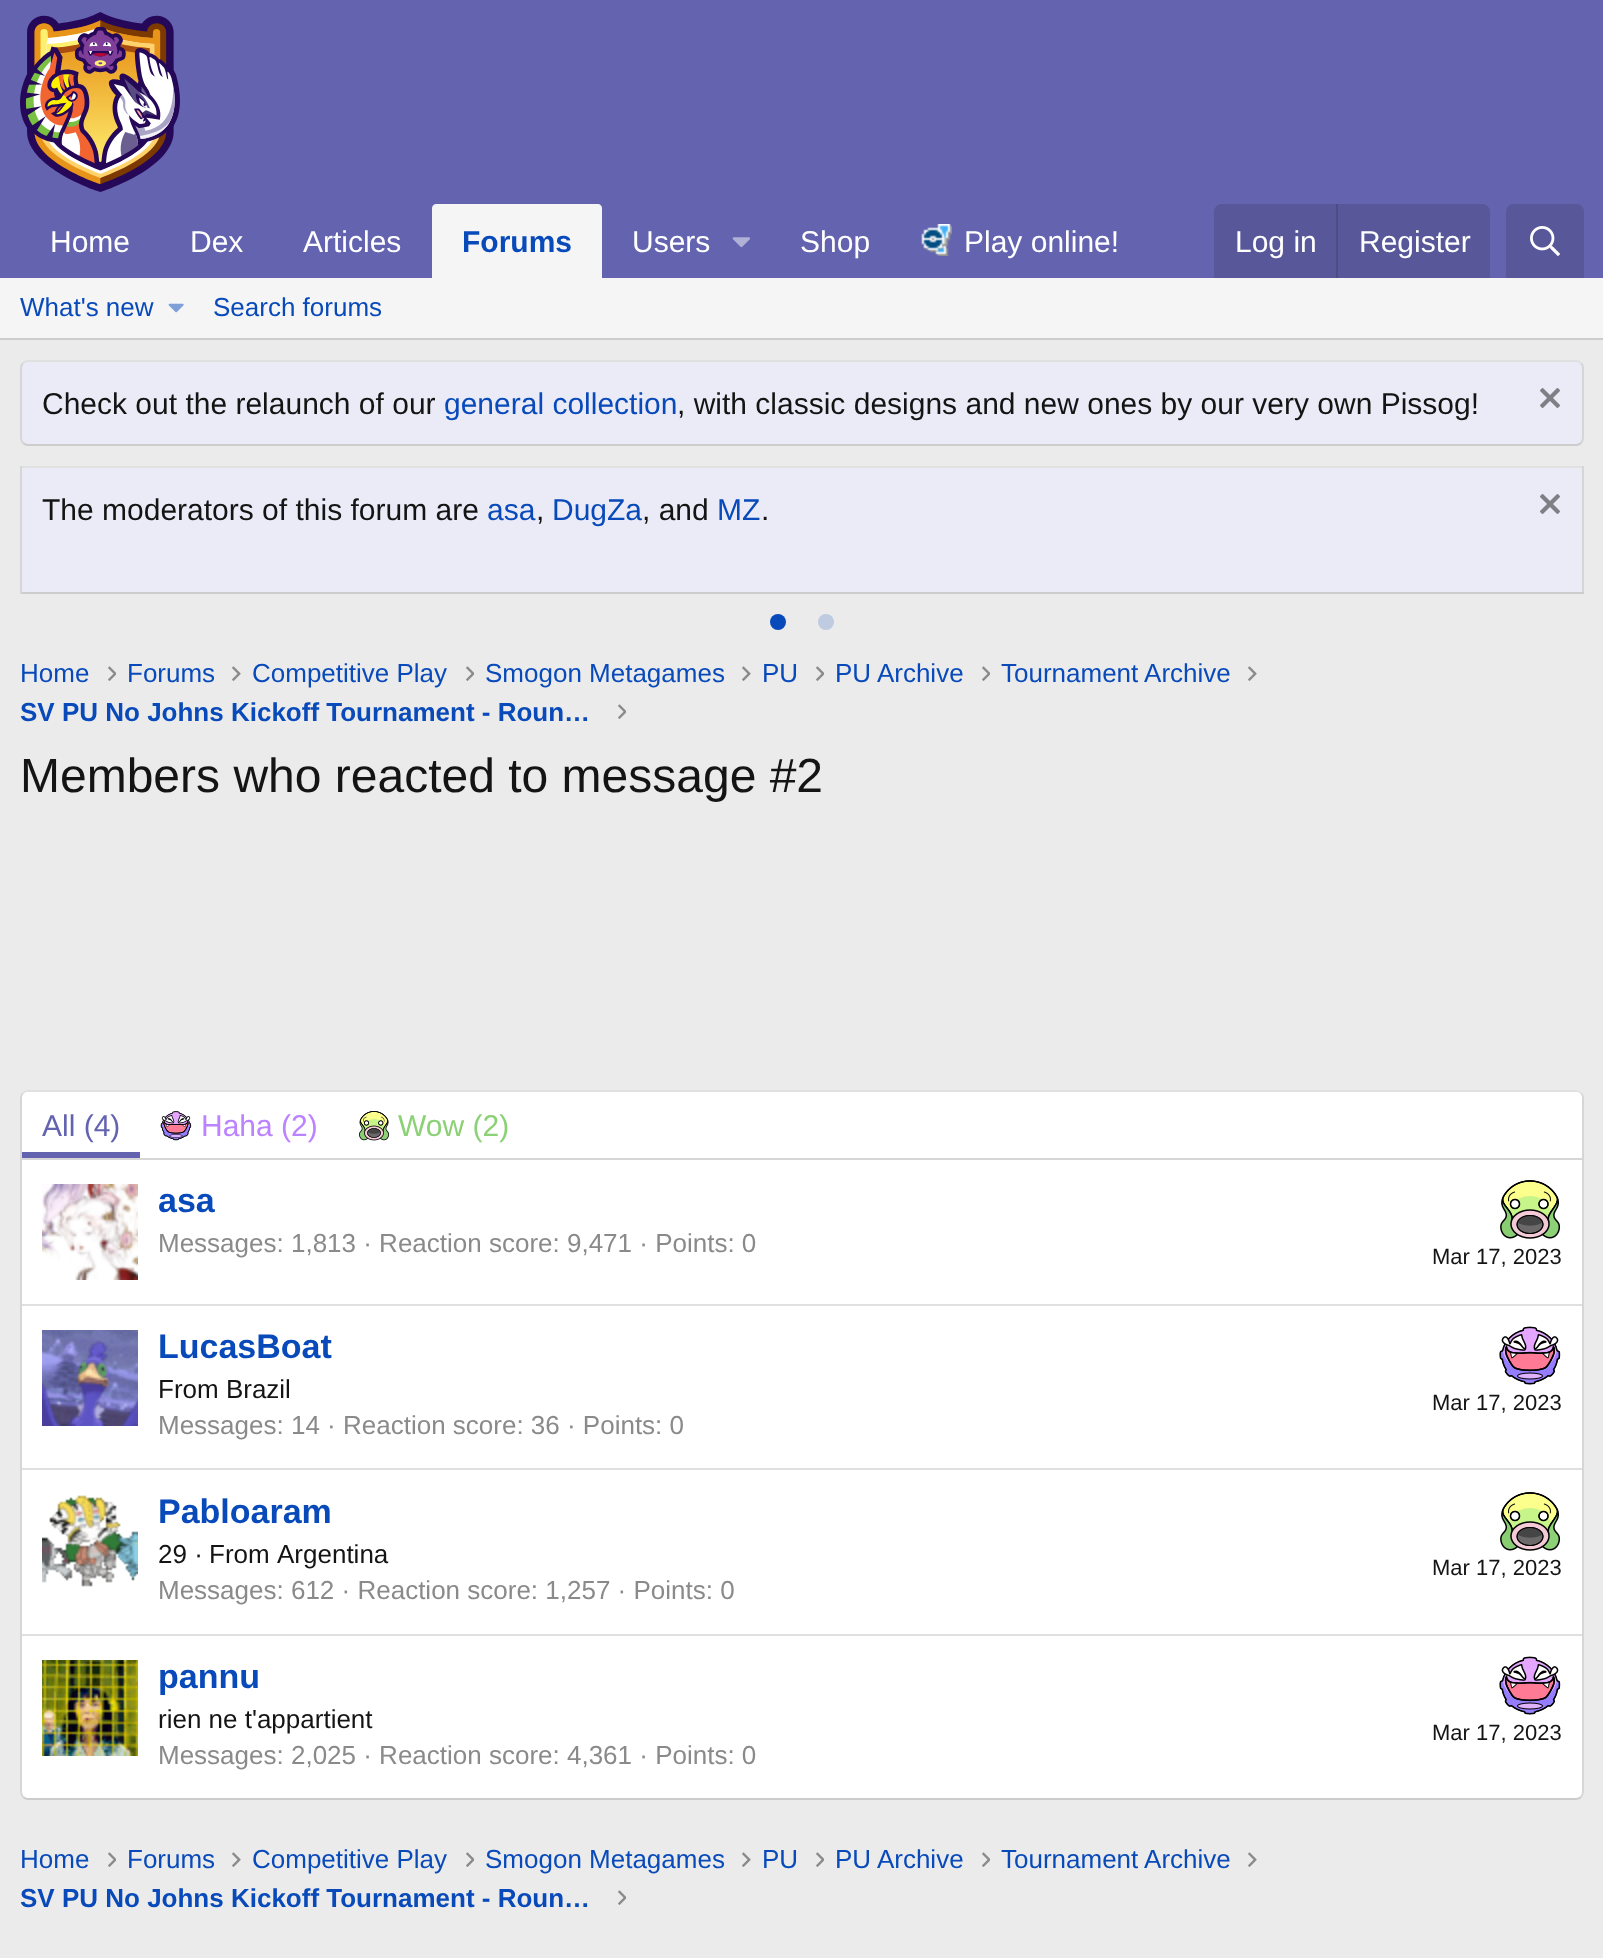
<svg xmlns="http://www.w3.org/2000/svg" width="1603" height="1958">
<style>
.a{font:30px Liberation Sans;fill:#fff}
.b{font:bold 30px Liberation Sans;fill:#094aba}
.c{font:26px Liberation Sans;fill:#094aba}
.d{font:30px Liberation Sans;fill:#141414}
.e{font:30px Liberation Sans;fill:#094aba}
.f{font:bold 26px Liberation Sans;fill:#094aba}
.g{font:48px Liberation Sans;fill:#141414}
.h{font:30px Liberation Sans;fill:#6363b0}
.i{font:30px Liberation Sans;fill:#bb83ff}
.j{font:30px Liberation Sans;fill:#8cd175}
.k{font:bold 34px Liberation Sans;fill:#094aba}
.l{font:26px Liberation Sans;fill:#8a8a8a}
.m{font:22px Liberation Sans;fill:#141414}
.n{font:26px Liberation Sans;fill:#141414}
</style>
<rect width="100%" height="100%" fill="#ebebeb"/>
<path fill="#6363b0" d="M0 0h1603v278H0z"/>
<image href="1.png" x="20" y="12" width="160" height="180"/>
<path fill="#f5f5f5" d="M436 204h162c2 0 4 2 4 4v70h-170v-70c0-2 2-4 4-4z"/>
<image href="2.png" x="732" y="237" width="18" height="11"/>
<image href="3.png" x="921" y="224" width="31" height="32"/>
<path fill="#575799" d="M1222 204h260c4.5 0 8 3.5 8 8v66h-276v-66c0-4.5 3.5-8 8-8z"/>
<path fill="#4d4d85" d="M1336 204h2v74H1336z"/>
<path fill="#575799" d="M1514 204h62c4.5 0 8 3.5 8 8v66h-78v-66c0-4.5 3.5-8 8-8z"/>
<image href="4.png" x="1530" y="226" width="30" height="30"/>
<path fill="#f5f5f5" d="M0 278h1603v60H0z"/>
<path fill="#ccc" d="M0 338h1603v2H0z"/>
<image href="5.png" x="168" y="303" width="16" height="10"/>
<rect fill="#ebebf7" x="20" y="360" width="1564" height="86" rx="8"/>
<path fill="none" stroke="#e0e0e0" stroke-width="2" d="M23 363c1.5-1.5 3-2 5-2h1548c2 0 3.5 .5 5 2"/>
<path fill="none" stroke="#d6d6d6" stroke-width="2" d="M1581 363c1.5 1.5 2 3 2 5v70c0 2-.5 3.5-2 5"/>
<path fill="none" stroke="#ccc" stroke-width="2" d="M1581 443c-1.5 1.5-3 2-5 2h-1548c-2 0-3.5-.5-5-2"/>
<path fill="none" stroke="#d6d6d6" stroke-width="2" d="M23 443c-1.5-1.5-2-3-2-5v-70c0-2 .5-3.5 2-5"/>
<image href="6.png" x="1540" y="388" width="20" height="20"/>
<path fill="#e0e0e0" d="M20 466h1564v2H20z"/>
<path fill="#d6d6d6" d="M1582 466h2v128H1582z"/>
<path fill="#ccc" d="M20 592h1564v2H20z"/>
<path fill="#d6d6d6" d="M20 466h2v128H20z"/>
<path fill="#ebebf7" d="M22 468h1560v124H22z"/>
<image href="6.png" x="1540" y="494" width="20" height="20"/>
<circle fill="#094aba" cx="778" cy="622" r="8"/>
<circle fill="#becbe1" cx="826" cy="622" r="8"/>
<image href="7.png" x="108" y="666" width="8" height="15"/>
<image href="8.png" x="232" y="666" width="9" height="15"/>
<image href="7.png" x="466" y="666" width="8" height="15"/>
<image href="8.png" x="742" y="666" width="9" height="15"/>
<image href="7.png" x="816" y="666" width="8" height="15"/>
<image href="7.png" x="982" y="666" width="8" height="15"/>
<image href="8.png" x="1248" y="666" width="9" height="15"/>
<image href="7.png" x="618" y="704" width="8" height="15"/>
<rect fill="#fff" x="20" y="1090" width="1564" height="710" rx="8"/>
<path fill="none" stroke="#e0e0e0" stroke-width="2" d="M23 1093c1.5-1.5 3-2 5-2h1548c2 0 3.5 .5 5 2"/>
<path fill="none" stroke="#d6d6d6" stroke-width="2" d="M1581 1093c1.5 1.5 2 3 2 5v694c0 2-.5 3.5-2 5"/>
<path fill="none" stroke="#ccc" stroke-width="2" d="M1581 1797c-1.5 1.5-3 2-5 2h-1548c-2 0-3.5-.5-5-2"/>
<path fill="none" stroke="#d6d6d6" stroke-width="2" d="M23 1797c-1.5-1.5-2-3-2-5v-694c0-2 .5-3.5 2-5"/>
<path fill="#fff" d="M28 1092h1548c3.5 0 6 2.5 6 6v62h-1560v-62c0-3.5 2.5-6 6-6z"/>
<path fill="#d6d6d6" d="M22 1158h1560v2H22z"/>
<path fill="#6363b0" d="M22 1152h118v6H22z"/>
<image href="9.png" x="160" y="1111" width="32" height="30"/>
<image href="10.png" x="359" y="1111" width="31" height="30"/>
<image href="11.png" x="42" y="1184" width="96" height="96"/>
<image href="12.png" x="1500" y="1180" width="61" height="59"/>
<path fill="#e0e0e0" d="M22 1304h1560v2H22z"/>
<image href="13.png" x="42" y="1330" width="96" height="96"/>
<image href="14.png" x="1499" y="1326" width="62" height="59"/>
<path fill="#e0e0e0" d="M22 1468h1560v2H22z"/>
<image href="15.png" x="42" y="1495" width="96" height="92"/>
<image href="12.png" x="1500" y="1492" width="61" height="59"/>
<path fill="#e0e0e0" d="M22 1634h1560v2H22z"/>
<image href="16.png" x="42" y="1660" width="96" height="96"/>
<image href="14.png" x="1499" y="1656" width="62" height="59"/>
<image href="7.png" x="108" y="1852" width="8" height="15"/>
<image href="8.png" x="232" y="1852" width="9" height="15"/>
<image href="7.png" x="466" y="1852" width="8" height="15"/>
<image href="8.png" x="742" y="1852" width="9" height="15"/>
<image href="7.png" x="816" y="1852" width="8" height="15"/>
<image href="7.png" x="982" y="1852" width="8" height="15"/>
<image href="8.png" x="1248" y="1852" width="9" height="15"/>
<image href="7.png" x="618" y="1890" width="8" height="15"/>
<text class="a" x="50" y="252">Home</text>
<text class="a" x="190" y="252">Dex</text>
<text class="a" x="303" y="252">Articles</text>
<text class="b" x="462" y="252">Forums</text>
<text class="a" x="632" y="252">Users</text>
<text class="a" x="800" y="252">Shop</text>
<text class="a" x="964" y="252">Play online!</text>
<text class="a" x="1235" y="252">Log in</text>
<text class="a" x="1359" y="252">Register</text>
<text class="c" x="20" y="316">What's new</text>
<text class="c" x="213" y="316">Search forums</text>
<text class="d" x="42" y="414">Check out the relaunch of our</text>
<text class="e" x="444" y="414">general collection</text>
<text class="d" x="677" y="414">, with classic designs and new ones by our very own Pissog!</text>
<text class="d" x="42" y="520">The moderators of this forum are</text>
<text class="e" x="487" y="520">asa</text>
<text class="d" x="536" y="520">,</text>
<text class="e" x="552" y="520">DugZa</text>
<text class="d" x="642" y="520">, and</text>
<text class="e" x="717" y="520">MZ</text>
<text class="d" x="761" y="520">.</text>
<text class="c" x="20" y="682">Home</text>
<text class="c" x="127" y="682">Forums</text>
<text class="c" x="252" y="682">Competitive Play</text>
<text class="c" x="485" y="682">Smogon Metagames</text>
<text class="c" x="762" y="682">PU</text>
<text class="c" x="835" y="682">PU Archive</text>
<text class="c" x="1001" y="682">Tournament Archive</text>
<text class="f" x="20" y="721">SV PU No Johns Kickoff Tournament - Roun…</text>
<text class="g" x="20" y="792">Members who reacted to message #2</text>
<text class="h" x="42" y="1136">All (4)</text>
<text class="i" x="201" y="1136">Haha (2)</text>
<text class="j" x="398" y="1136">Wow (2)</text>
<text class="k" x="158" y="1212">asa</text>
<text class="l" x="158" y="1252">Messages: 1,813 · Reaction score: 9,471 · Points: 0</text>
<text class="m" x="1432" y="1264">Mar 17, 2023</text>
<text class="k" x="158" y="1358">LucasBoat</text>
<text class="n" x="158" y="1398">From Brazil</text>
<text class="m" x="1432" y="1410">Mar 17, 2023</text>
<text class="l" x="158" y="1434">Messages: 14 · Reaction score: 36 · Points: 0</text>
<text class="k" x="158" y="1523">Pabloaram</text>
<text class="n" x="158" y="1563">29 ·</text>
<text class="n" x="209" y="1563">From</text>
<text class="n" x="277" y="1563">Argentina</text>
<text class="m" x="1432" y="1575">Mar 17, 2023</text>
<text class="l" x="158" y="1599">Messages: 612 · Reaction score: 1,257 · Points: 0</text>
<text class="k" x="158" y="1688">pannu</text>
<text class="n" x="158" y="1728">rien ne t'appartient</text>
<text class="m" x="1432" y="1740">Mar 17, 2023</text>
<text class="l" x="158" y="1764">Messages: 2,025 · Reaction score: 4,361 · Points: 0</text>
<text class="c" x="20" y="1868">Home</text>
<text class="c" x="127" y="1868">Forums</text>
<text class="c" x="252" y="1868">Competitive Play</text>
<text class="c" x="485" y="1868">Smogon Metagames</text>
<text class="c" x="762" y="1868">PU</text>
<text class="c" x="835" y="1868">PU Archive</text>
<text class="c" x="1001" y="1868">Tournament Archive</text>
<text class="f" x="20" y="1907">SV PU No Johns Kickoff Tournament - Roun…</text>
</svg>
